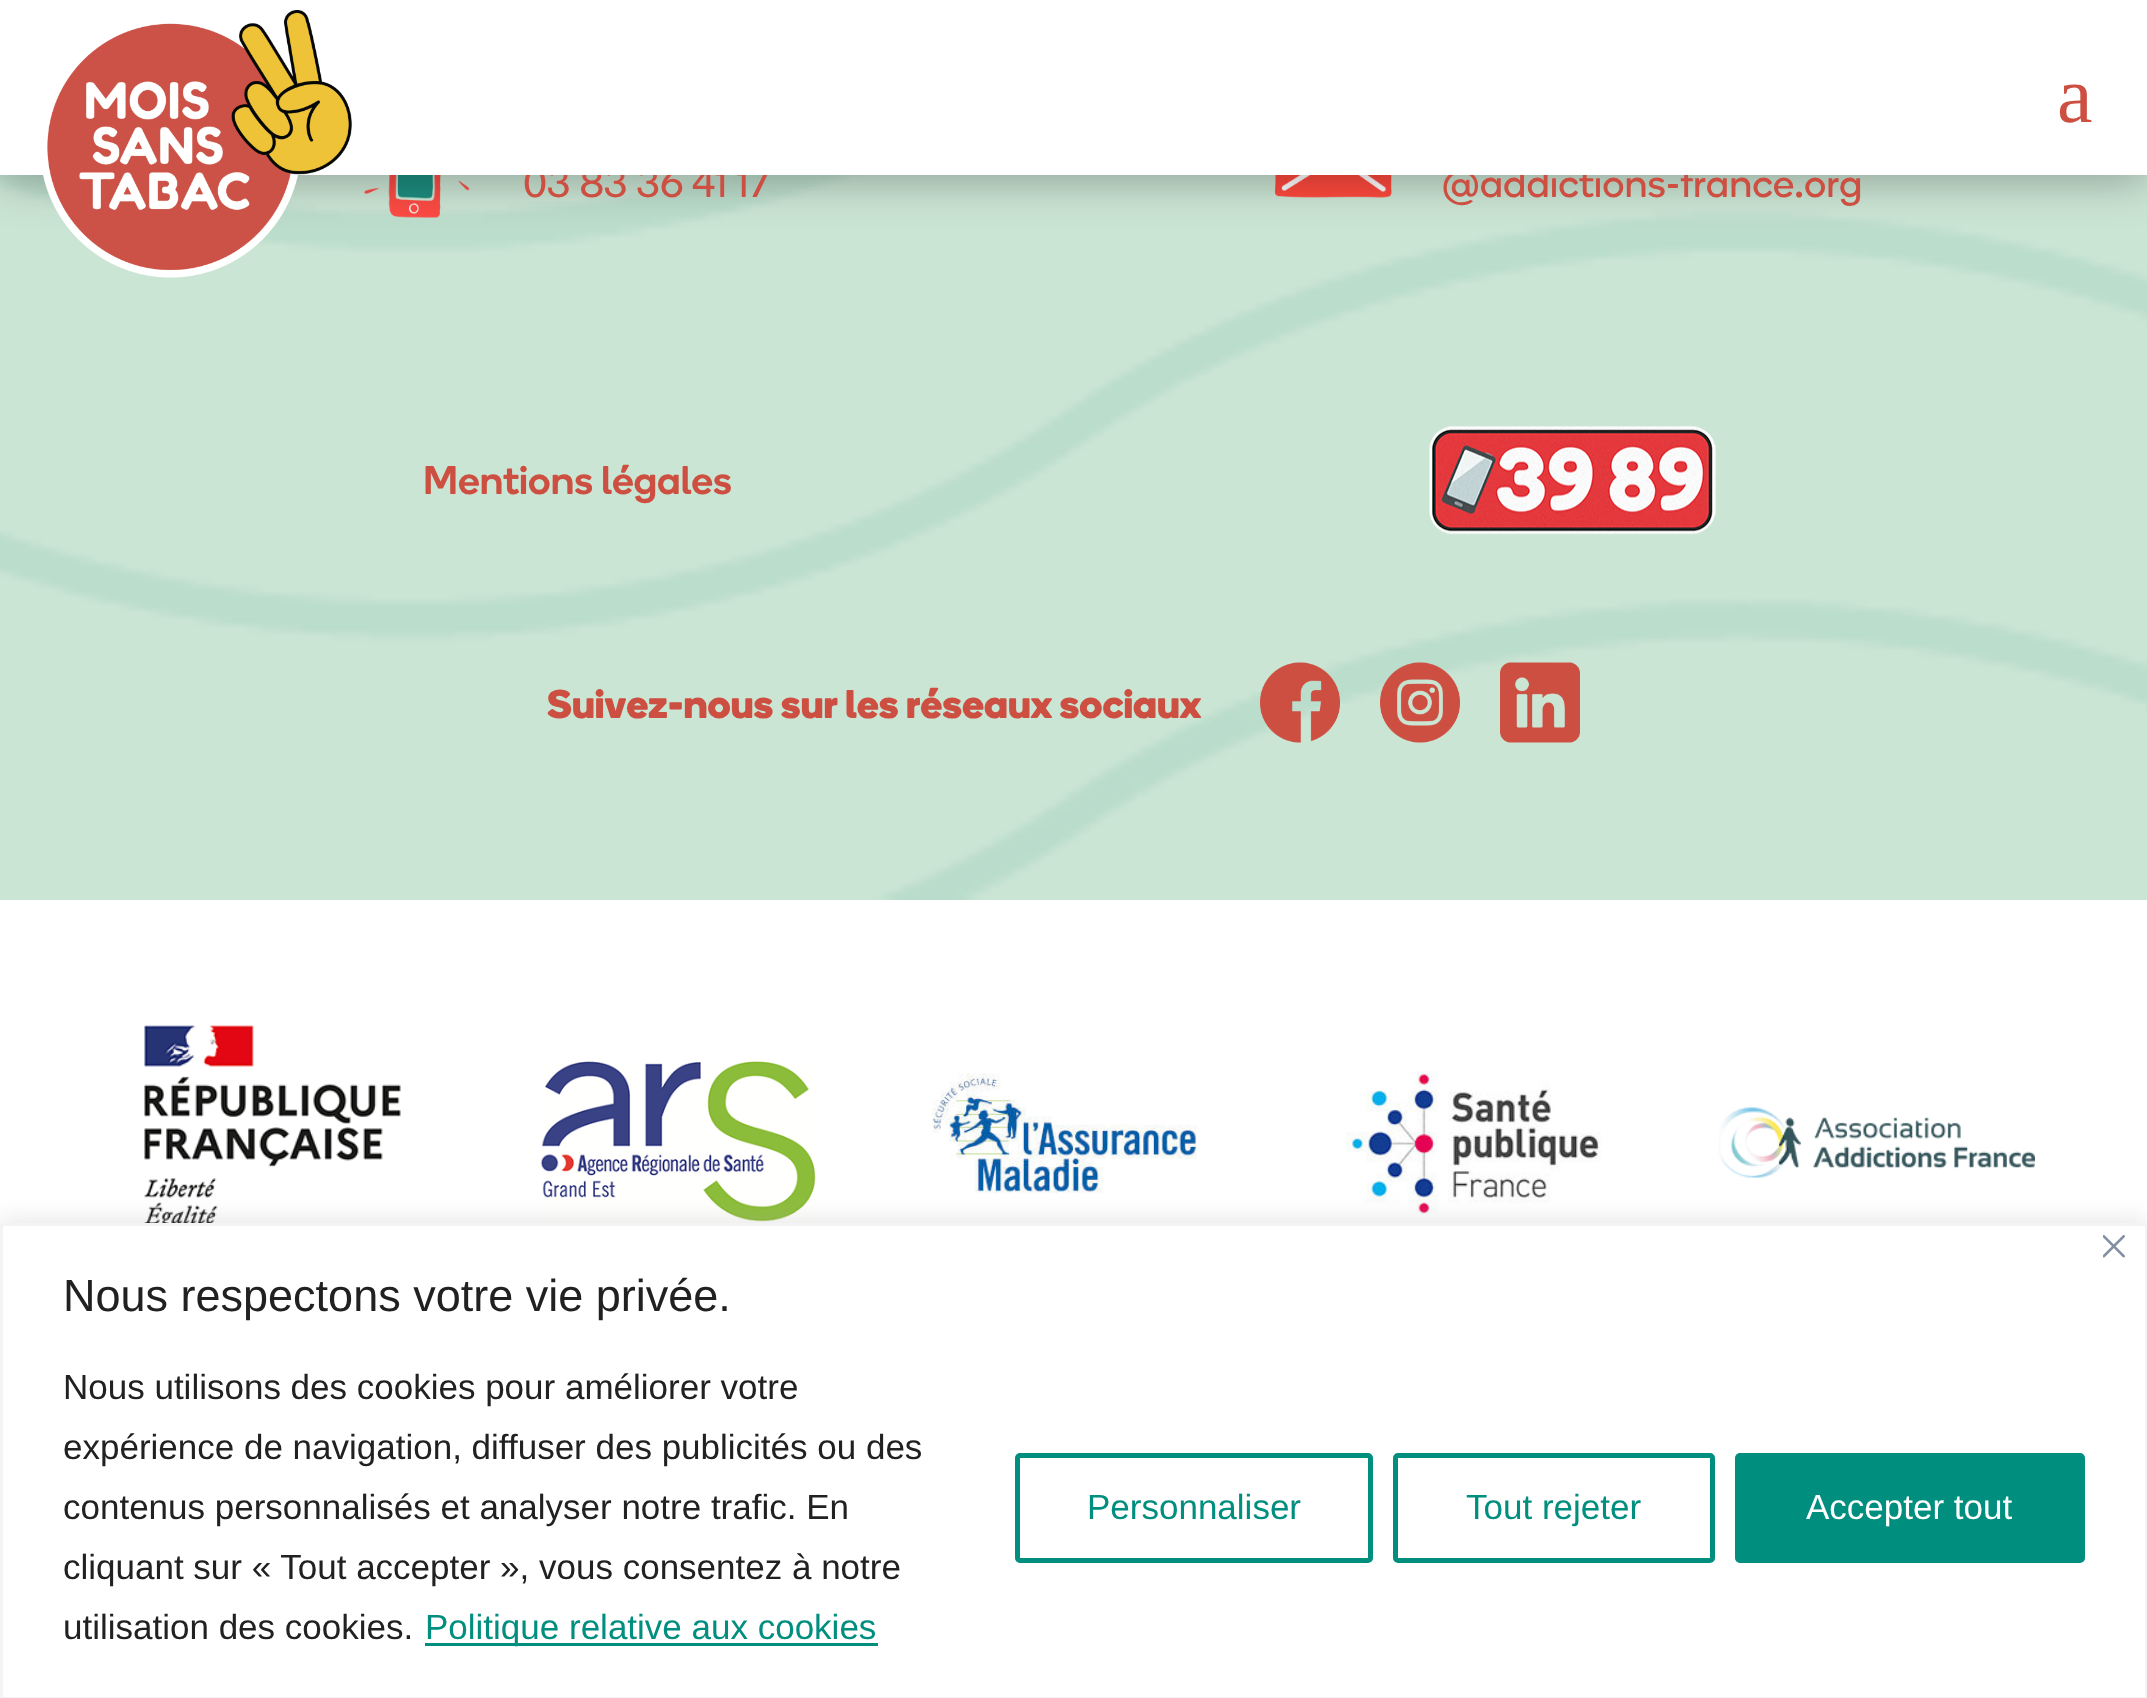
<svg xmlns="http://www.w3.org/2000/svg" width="2147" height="1698">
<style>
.a{font:40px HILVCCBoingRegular;fill:#cd4f41}
.b{font:80px Liberation Serif;fill:#cd4f41}
.c{font:500 40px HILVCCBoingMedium;fill:#cd4f41}
.d{font:bold 40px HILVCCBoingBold;fill:#cd4f41}
.e{font:45px Liberation Sans;fill:#212121}
.f{font:35px Liberation Sans;fill:#212121}
.g{font:35px Liberation Sans;fill:#008e7f}
.h{font:35px Liberation Sans;fill:#fff}
</style>
<rect width="100%" height="100%" fill="#fff"/>
<path fill="#cbe5d4" d="M0 175h2147v725H0z"/>
<image href="2.png" x="0" y="175" width="2147" height="725"/>
<image href="3.png" x="364" y="175" width="106" height="43"/>
<image href="4.png" x="1275" y="175" width="117" height="23"/>
<path fill="#0000004d" filter="blur(22.5px)" d="M0 5h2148v175H0z"/>
<image href="5.png" x="1429" y="426" width="287" height="109"/>
<image href="6.png" x="1260" y="662" width="80" height="81"/>
<image href="7.png" x="1380" y="662" width="80" height="81"/>
<image href="8.png" x="1500" y="662" width="80" height="81"/>
<image href="9.png" x="144" y="1025" width="257" height="198"/>
<image href="10.png" x="540" y="1061" width="276" height="161"/>
<image href="11.png" x="932" y="1073" width="265" height="120"/>
<image href="12.png" x="1346" y="1071" width="256" height="143"/>
<image href="13.png" x="1718" y="1107" width="317" height="71"/>
<path fill="#acabab4d" filter="blur(12.5px)" d="M0 1220h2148v478H0z"/>
<path fill="#fff" stroke="#f4f4f4" stroke-width="3" d="M1.5 1224.5h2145v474H1.5z"/>
<image href="14.png" x="2103" y="1235" width="22" height="23"/>
<path fill="#008e7f" d="M425 1643h453v3H425z"/>
<rect fill="none" stroke="#008e7f" stroke-width="5" x="1017.5" y="1455.5" width="353" height="105" rx="2.5"/>
<rect fill="none" stroke="#008e7f" stroke-width="5" x="1395.5" y="1455.5" width="317" height="105" rx="2.5"/>
<rect fill="#008e7f" stroke="#008e7f" stroke-width="5" x="1737.5" y="1455.5" width="345" height="105" rx="2.5"/>
<text class="a" x="523" y="197">03 83 36 41 17</text>
<text class="a" x="1442" y="197">@addictions-france.org</text>
<path fill="#fff" d="M0 0h2147v175H0z"/>
<text class="b" x="2057" y="122">a</text>
<image href="1.png" x="43" y="10" width="309" height="268"/>
<text class="c" x="423" y="494">Mentions légales</text>
<text class="d" x="547" y="718">Suivez-nous sur les réseaux sociaux</text>
<text class="e" x="63" y="1311">Nous respectons votre vie privée.</text>
<text class="f" x="63" y="1399">Nous utilisons des cookies pour améliorer votre</text>
<text class="f" x="63" y="1459">expérience de navigation, diffuser des publicités ou des</text>
<text class="f" x="63" y="1519">contenus personnalisés et analyser notre trafic. En</text>
<text class="f" x="63" y="1579">cliquant sur « Tout accepter », vous consentez à notre</text>
<text class="f" x="63" y="1639">utilisation des cookies.</text>
<text class="g" x="425" y="1639">Politique relative aux cookies</text>
<text class="g" x="1087" y="1519">Personnaliser</text>
<text class="g" x="1466" y="1519">Tout rejeter</text>
<text class="h" x="1806" y="1519">Accepter tout</text>
</svg>
